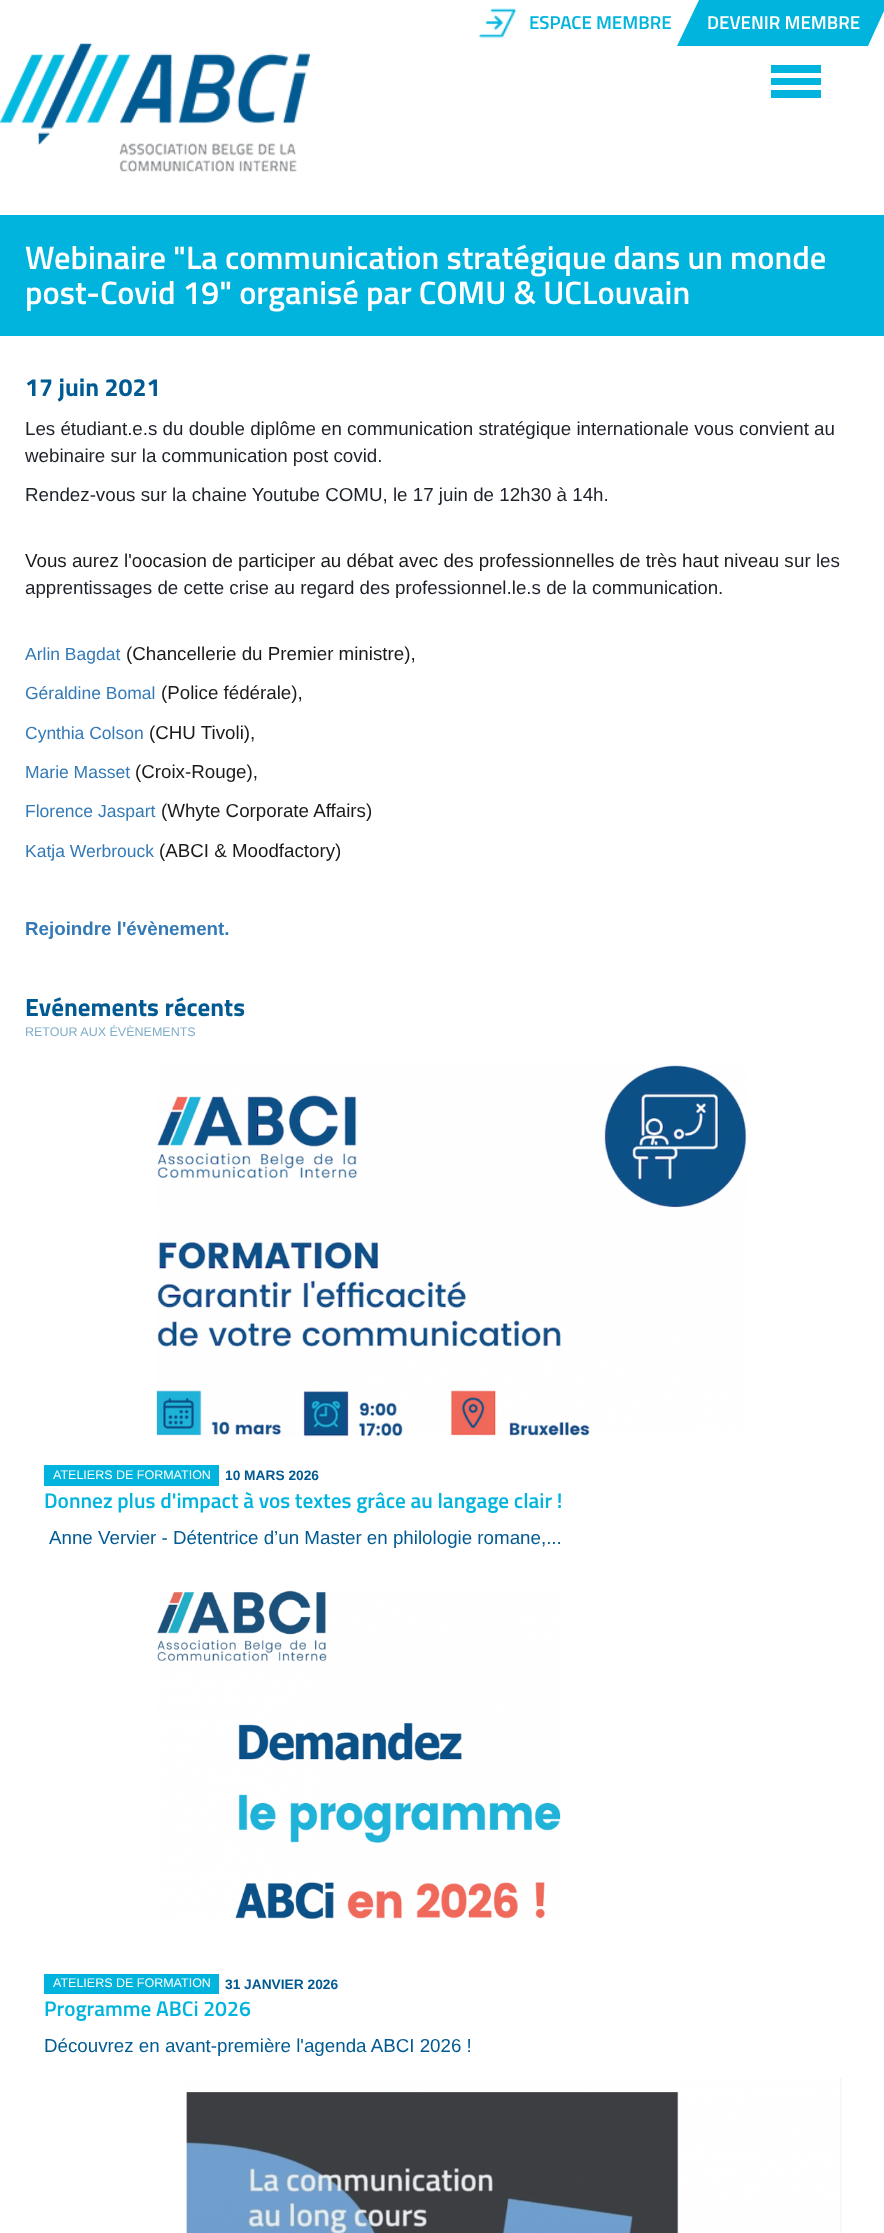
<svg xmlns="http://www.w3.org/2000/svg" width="884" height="2233">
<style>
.a{font:600 18.75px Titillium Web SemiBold;fill:#00b4dd}
.b{font:600 18.75px Titillium Web SemiBold;fill:#fff}
.c{font:600 32.5px Titillium Web SemiBold;fill:#fff}
.d{font:bold 25px Titillium Web;fill:#015a92}
.e{font:18.75px Liberation Sans;fill:#1d2129}
.f{font:18.75px Liberation Sans;fill:#1a1a1a}
.g{font:17.5px Liberation Sans;fill:#337ab7}
.h{font:bold 18.75px Liberation Sans;fill:#337ab7}
.i{font:12.5px Liberation Sans;fill:#80adc9}
.j{font:12.5px Liberation Sans;fill:#fff}
.k{font:bold 13.75px Liberation Sans;fill:#015a92}
.l{font:600 21.25px Titillium Web SemiBold;fill:#00b4dd}
.m{font:18.75px Liberation Sans;fill:#015a92}
</style>
<rect width="100%" height="100%" fill="#fff"/>
<image href="1.png" x="478" y="8" width="39" height="30"/>
<path fill="#00b4dd" d="M699 0h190l-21 46h-191z"/>
<image href="2.png" x="0" y="43" width="310" height="129"/>
<path fill="#00b4dd" d="M771 65h50v8H771z"/>
<path fill="#00b4dd" d="M771 78h50v7H771z"/>
<path fill="#00b4dd" d="M771 90h50v8H771z"/>
<path fill="#00b4dd" d="M0 215h884v121H0z"/>
<image href="3.png" x="156" y="1065" width="591" height="372"/>
<path fill="#00b4dd" d="M44 1465h175v21H44z"/>
<image href="4.png" x="157" y="1590" width="404" height="329"/>
<path fill="#00b4dd" d="M44 1974h175v20H44z"/>
<image href="5.png" x="186" y="2077" width="656" height="156"/>
<text class="a" x="529" y="29">ESPACE MEMBRE</text>
<text class="b" x="707" y="29">DEVENIR MEMBRE</text>
<text class="c" x="25" y="269">Webinaire "La communication stratégique dans un monde</text>
<text class="c" x="25" y="304">post-Covid 19" organisé par COMU &amp; UCLouvain</text>
<text class="d" x="25" y="396">17 juin 2021</text>
<text class="e" x="25" y="435">Les étudiant.e.s du double diplôme en communication stratégique internationale vous convient au</text>
<text class="e" x="25" y="462">webinaire sur la communication post covid.</text>
<text class="e" x="25" y="501">Rendez-vous sur la chaine Youtube COMU, le 17 juin de 12h30 à 14h.</text>
<text class="f" x="25" y="567">Vous aurez l'oocasion de participer au débat avec des professionnelles de très haut niveau s</text>
<text class="e" x="794" y="567">ur les</text>
<text class="e" x="25" y="594">apprentissages de cette crise au regard des professionnel.le.s de la communication.</text>
<text class="g" x="25" y="660">Arlin Bagdat</text>
<text class="f" x="126" y="660">(Chancellerie du Premier ministre),</text>
<text class="g" x="25" y="699">Géraldine Bomal</text>
<text class="f" x="161" y="699">(Police fédérale),</text>
<text class="g" x="25" y="739">Cynthia Colson</text>
<text class="f" x="149" y="739">(CHU Tivoli),</text>
<text class="g" x="25" y="778">Marie Masset</text>
<text class="f" x="135" y="778">(Croix-Rouge),</text>
<text class="g" x="25" y="817">Florence Jaspart</text>
<text class="f" x="161" y="817">(Whyte Corporate Affairs)</text>
<text class="g" x="25" y="857">Katja Werbrouck</text>
<text class="f" x="159" y="857">(ABCI &amp; Moodfactory)</text>
<text class="h" x="25" y="935">Rejoindre l'évènement.</text>
<text class="d" x="25" y="1016">Evénements récents</text>
<text class="i" x="25" y="1036">RETOUR AUX ÉVÈNEMENTS</text>
<text class="j" x="53" y="1479">ATELIERS DE FORMATION</text>
<text class="k" x="225" y="1480">10 MARS 2026</text>
<text class="l" x="44" y="1508">Donnez plus d'impact à vos textes grâce au langage clair !</text>
<text class="m" x="49" y="1544">Anne Vervier - Détentrice d’un Master en philologie romane,...</text>
<text class="j" x="53" y="1987">ATELIERS DE FORMATION</text>
<text class="k" x="225" y="1989">31 JANVIER 2026</text>
<text class="l" x="44" y="2016">Programme ABCi 2026</text>
<text class="m" x="44" y="2052">Découvrez en avant-première l'agenda ABCI 2026 !</text>
</svg>
